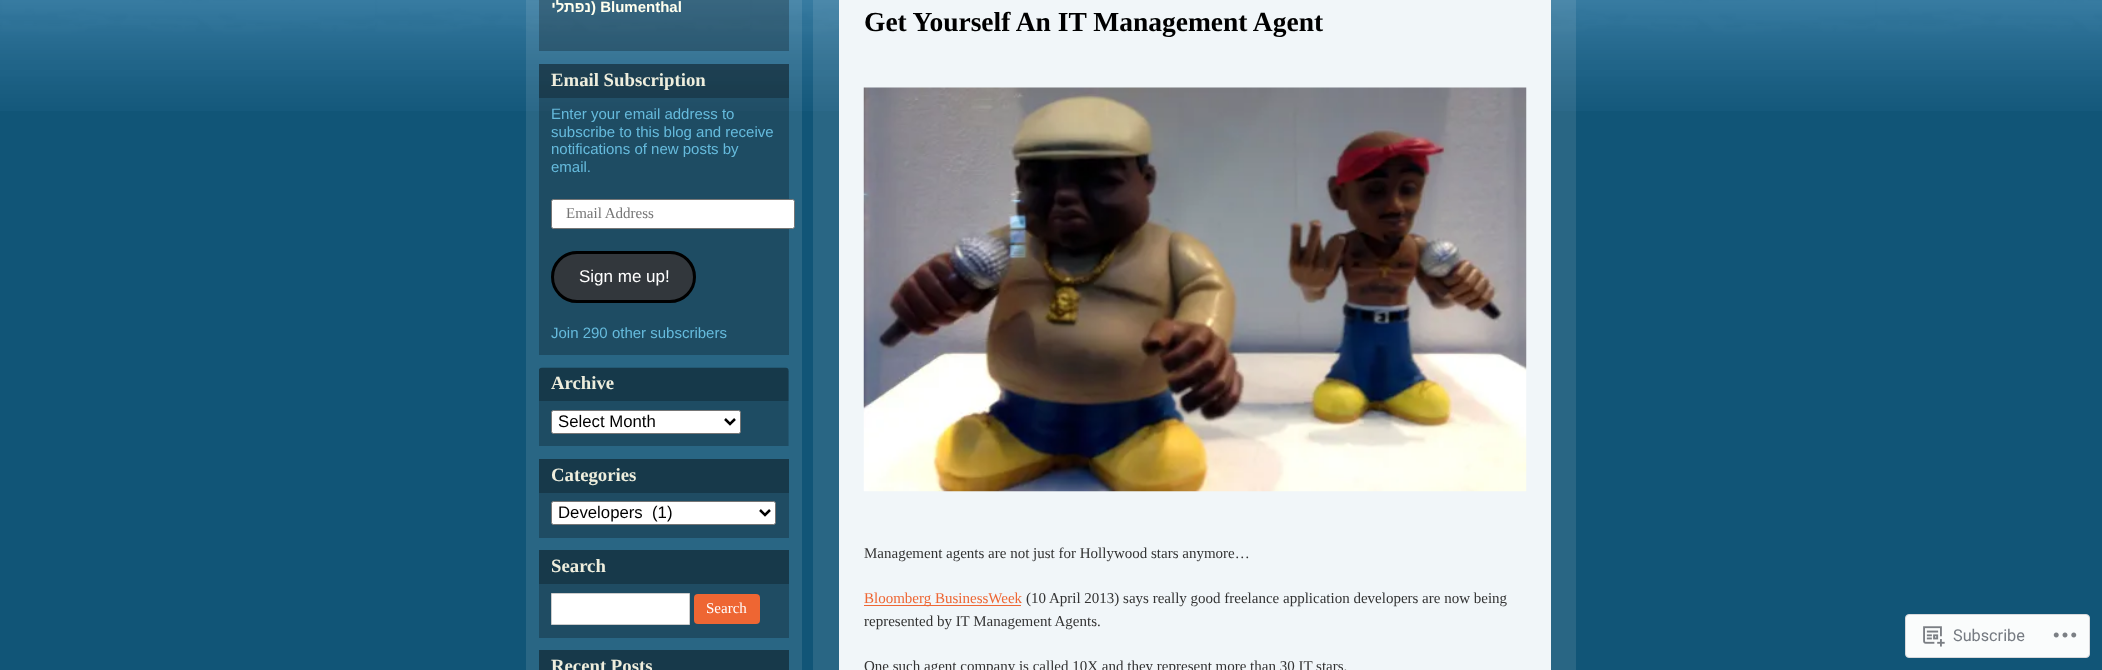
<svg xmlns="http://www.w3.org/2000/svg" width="2102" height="670">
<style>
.a{font:bold 15px Liberation Sans;direction:rtl;fill:#ffe}
.b{font:bold 15px Liberation Sans;fill:#ffe}
.c{font:bold 18.75px Liberation Serif;fill:#eed}
.d{font:15px Liberation Sans;fill:#6bd}
.e{font:15px Liberation Serif;fill:#757575}
.f{font:17px Liberation Sans;fill:#fff}
.g{font:16.75px Liberation Sans;fill:#000}
.h{font:15px Liberation Serif;fill:#fff}
.i{font:bold 27.5px Liberation Serif;fill:#000}
.j{font:15px Liberation Serif;fill:#333}
.k{font:15px Liberation Serif;fill:#e63}
.l{font:16.25px Roboto;fill:#767b82}
</style>
<rect width="100%" height="100%" fill="#157"/>
<image href="1.png" x="0" y="0" width="2102" height="111"/>
<path fill="#ffffff1a" d="M526 0h276v670H526z"/>
<path fill="#00000040" d="M539 0h250v51H539z"/>
<path fill="#00000040" d="M539 64h250v291H539z"/>
<path fill="#00000040" d="M539 64h250v34H539z"/>
<rect fill="#fff" stroke="#767676" x="551.5" y="199.5" width="243" height="29" rx="2"/>
<rect fill="#32373c" stroke="#000" stroke-width="3" x="552.5" y="252.5" width="142" height="49" rx="24.5"/>
<image href="2.png" x="539" y="367" width="250" height="79"/>
<image href="3.png" x="539" y="367" width="250" height="34"/>
<rect fill="#fff" stroke="#767676" x="551.5" y="410.5" width="189" height="23" rx="2"/>
<path fill="none" stroke="#000" stroke-width="2.5" d="M725 419l5 5l5-5"/>
<path fill="#1f4c63" d="M539 493h250v45H539z"/>
<path fill="#17394a" d="M539 459h250v34H539z"/>
<rect fill="#fff" stroke="#767676" x="551.5" y="501.5" width="224" height="23" rx="2"/>
<path fill="none" stroke="#000" stroke-width="2.5" d="M760 510l5 5l5-5"/>
<path fill="#1f4c63" d="M539 584h250v54H539z"/>
<path fill="#17394a" d="M539 550h250v34H539z"/>
<path fill="#fff" stroke="#ccc" d="M551.5 593.5h138v31H551.5z"/>
<rect fill="#e63" x="694" y="594" width="66" height="30" rx="4"/>
<path fill="#17394a" d="M539 650h250v20H539z"/>
<path fill="#ffffff1a" d="M813 0h763v670H813z"/>
<path fill="#f1f6f9" d="M839 0h712v670H839z"/>
<image href="4.png" x="863" y="87" width="664" height="405"/>
<path fill="#e63" d="M864 605h157v1H864z"/>
<rect fill="#fafcfc" stroke="#d8d9dc" x="1905.5" y="614.5" width="184" height="43" rx="3.5"/>
<image href="5.png" x="1923" y="626" width="22" height="21"/>
<image href="6.png" x="2053" y="632" width="24" height="6"/>
<text class="a" x="591" y="12">נפתלי</text>
<text class="b" x="591" y="12">) Blumenthal</text>
<text class="c" x="551" y="86">Email Subscription</text>
<text class="d" x="551" y="119">Enter your email address to</text>
<text class="d" x="551" y="137">subscribe to this blog and receive</text>
<text class="d" x="551" y="154">notifications of new posts by</text>
<text class="d" x="551" y="172">email.</text>
<text class="e" x="566" y="218">Email Address</text>
<text class="f" x="579" y="282">Sign me up!</text>
<text class="d" x="551" y="338">Join 290 other subscribers</text>
<text class="c" x="551" y="389">Archive</text>
<text class="g" x="558" y="427">Select Month</text>
<text class="c" x="551" y="481">Categories</text>
<text class="g" xml:space="preserve" x="558" y="518">Developers  (1)</text>
<text class="c" x="551" y="572">Search</text>
<text class="h" x="706" y="613">Search</text>
<text class="c" x="551" y="672">Recent Posts</text>
<text class="i" x="864" y="31">Get Yourself An IT Management Agent</text>
<text class="j" x="864" y="558">Management agents are not just for Hollywood stars anymore…</text>
<text class="k" x="864" y="603">Bloomberg BusinessWeek</text>
<text class="j" x="1026" y="603">(10 April 2013) says really good freelance application developers are now being</text>
<text class="j" x="864" y="626">represented by IT Management Agents.</text>
<text class="j" x="864" y="671">One such agent company is called 10X and they represent more than 30 IT stars.</text>
<text class="l" x="1953" y="641">Subscribe</text>
</svg>
